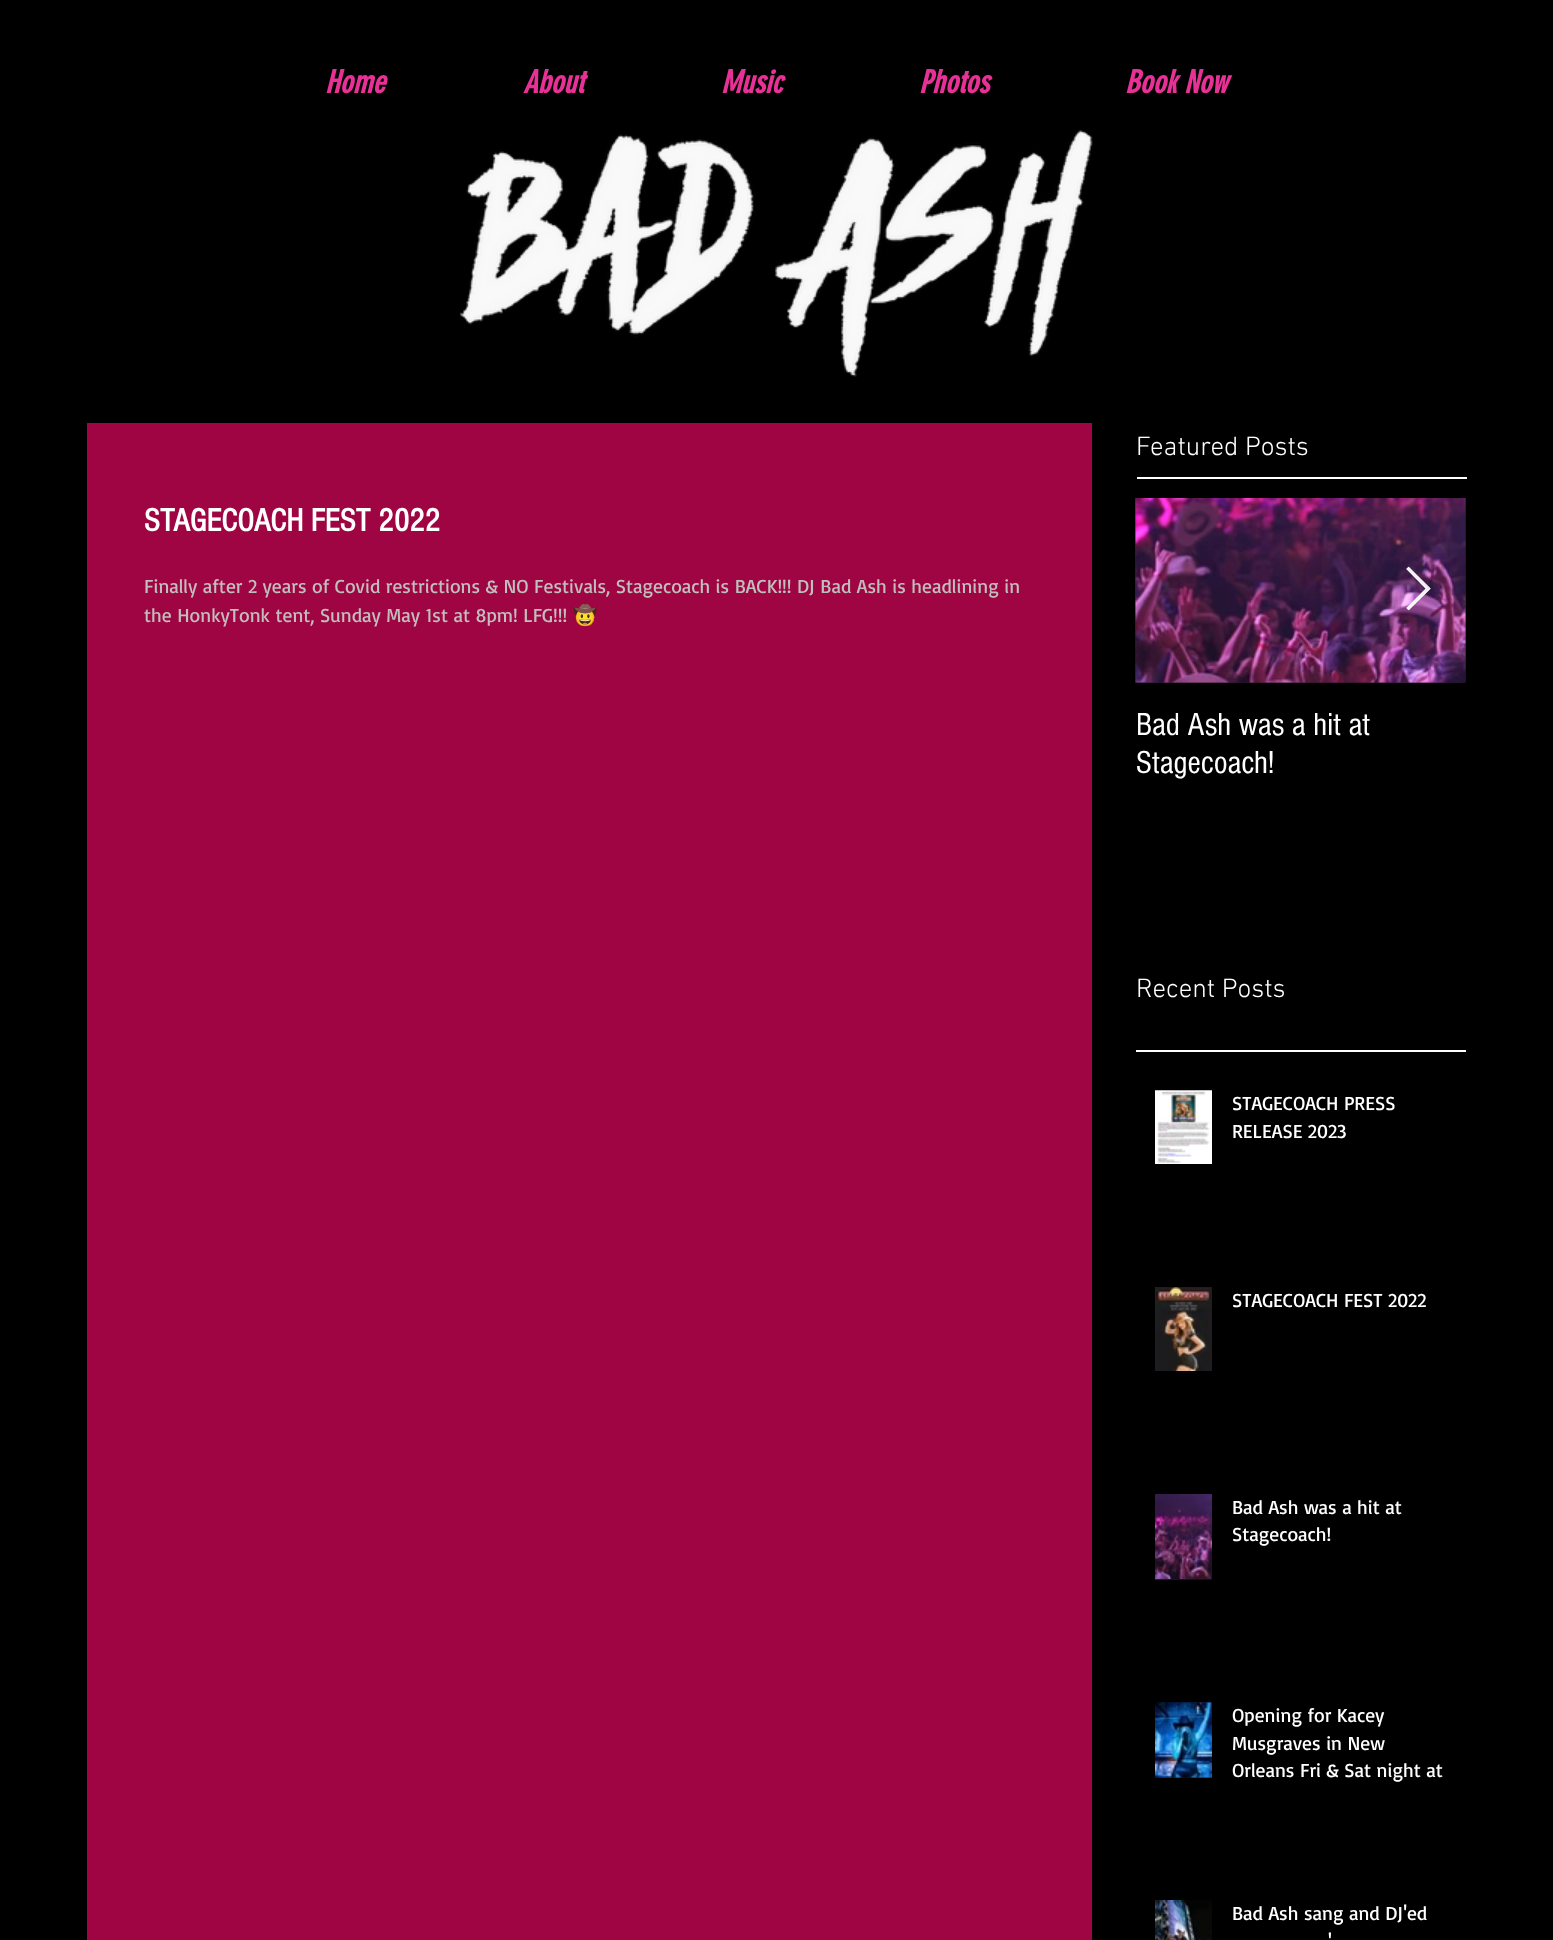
<svg xmlns="http://www.w3.org/2000/svg" width="1553" height="1940">
<style>
.a{font:italic bold 31.5px 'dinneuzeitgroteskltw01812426';fill:#e83196}
.b{font:300 27px 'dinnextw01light';fill:#fff}
.c{font:bold 33px 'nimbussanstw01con';fill:#fff}
.d{font:19.5px Basic;fill:#c2bebe}
.e{font:19.5px Noto Color Emoji;fill:#c2bebe}
.f{font:33px 'nimbussanstw01con';fill:#fff}
.g{font:19.5px Basic;fill:#fff}
</style>
<rect width="100%" height="100%" fill="#000"/>
<image href="1.png" x="459" y="130" width="634" height="247"/>
<path fill="#fff" d="M1137 477h330v2H1137z"/>
<path fill="#9e0542" d="M87 423h1005v1517H87z"/>
<image href="2.png" x="1135" y="498" width="331" height="185"/>
<image href="3.png" x="1135" y="498" width="331" height="185"/>
<path fill="#ffffffe6" d="M1407 569l2-2l21 22l-21 21l-2-2l19-19z"/>
<path fill="none" stroke="#ffffffe6" stroke-width="1.2" d="M1407 569l1.5-1.5l21.5 21l-21.5 21l-1.5-1.5l19.5-19.5z"/>
<path fill="#fff" d="M1136 1050h330v2H1136z"/>
<image href="4.png" x="1155" y="1090" width="57" height="1"/>
<image href="5.png" x="1155" y="1090" width="57" height="74"/>
<image href="6.png" x="1155" y="1287" width="57" height="84"/>
<image href="7.png" x="1155" y="1494" width="57" height="85"/>
<image href="8.png" x="1155" y="1579" width="57" height="1"/>
<image href="9.png" x="1155" y="1702" width="57" height="76"/>
<image href="10.png" x="1155" y="1702" width="57" height="76"/>
<image href="11.png" x="1155" y="1900" width="57" height="40"/>
<text class="a" x="325" y="93">Home</text>
<text class="a" x="523" y="93">About</text>
<text class="a" x="721" y="93">Music</text>
<text class="a" x="919" y="93">Photos</text>
<text class="a" x="1125" y="93">Book Now</text>
<text class="b" x="1136" y="455">Featured Posts</text>
<text class="c" x="144" y="531">STAGECOACH FEST 2022</text>
<text class="d" x="144" y="593">Finally after 2 years of Covid restrictions &amp; NO Festivals, Stagecoach is BACK!!! DJ Bad Ash is headlining in</text>
<text class="d" x="144" y="622">the HonkyTonk tent, Sunday May 1st at 8pm! LFG!!!</text>
<text class="e" x="573" y="622">🤠</text>
<text class="f" x="1136" y="735">Bad Ash was a hit at</text>
<text class="f" x="1136" y="773">Stagecoach!</text>
<text class="b" x="1136" y="997">Recent Posts</text>
<text class="g" x="1232" y="1110">STAGECOACH PRESS</text>
<text class="g" x="1232" y="1138">RELEASE 2023</text>
<text class="g" x="1232" y="1307">STAGECOACH FEST 2022</text>
<text class="g" x="1232" y="1514">Bad Ash was a hit at</text>
<text class="g" x="1232" y="1541">Stagecoach!</text>
<text class="g" x="1232" y="1722">Opening for Kacey</text>
<text class="g" x="1232" y="1750">Musgraves in New</text>
<text class="g" x="1232" y="1777">Orleans Fri &amp; Sat night at</text>
<text class="g" x="1232" y="1920">Bad Ash sang and DJ'ed</text>
<text class="g" x="1328" y="1948">'</text>
</svg>
